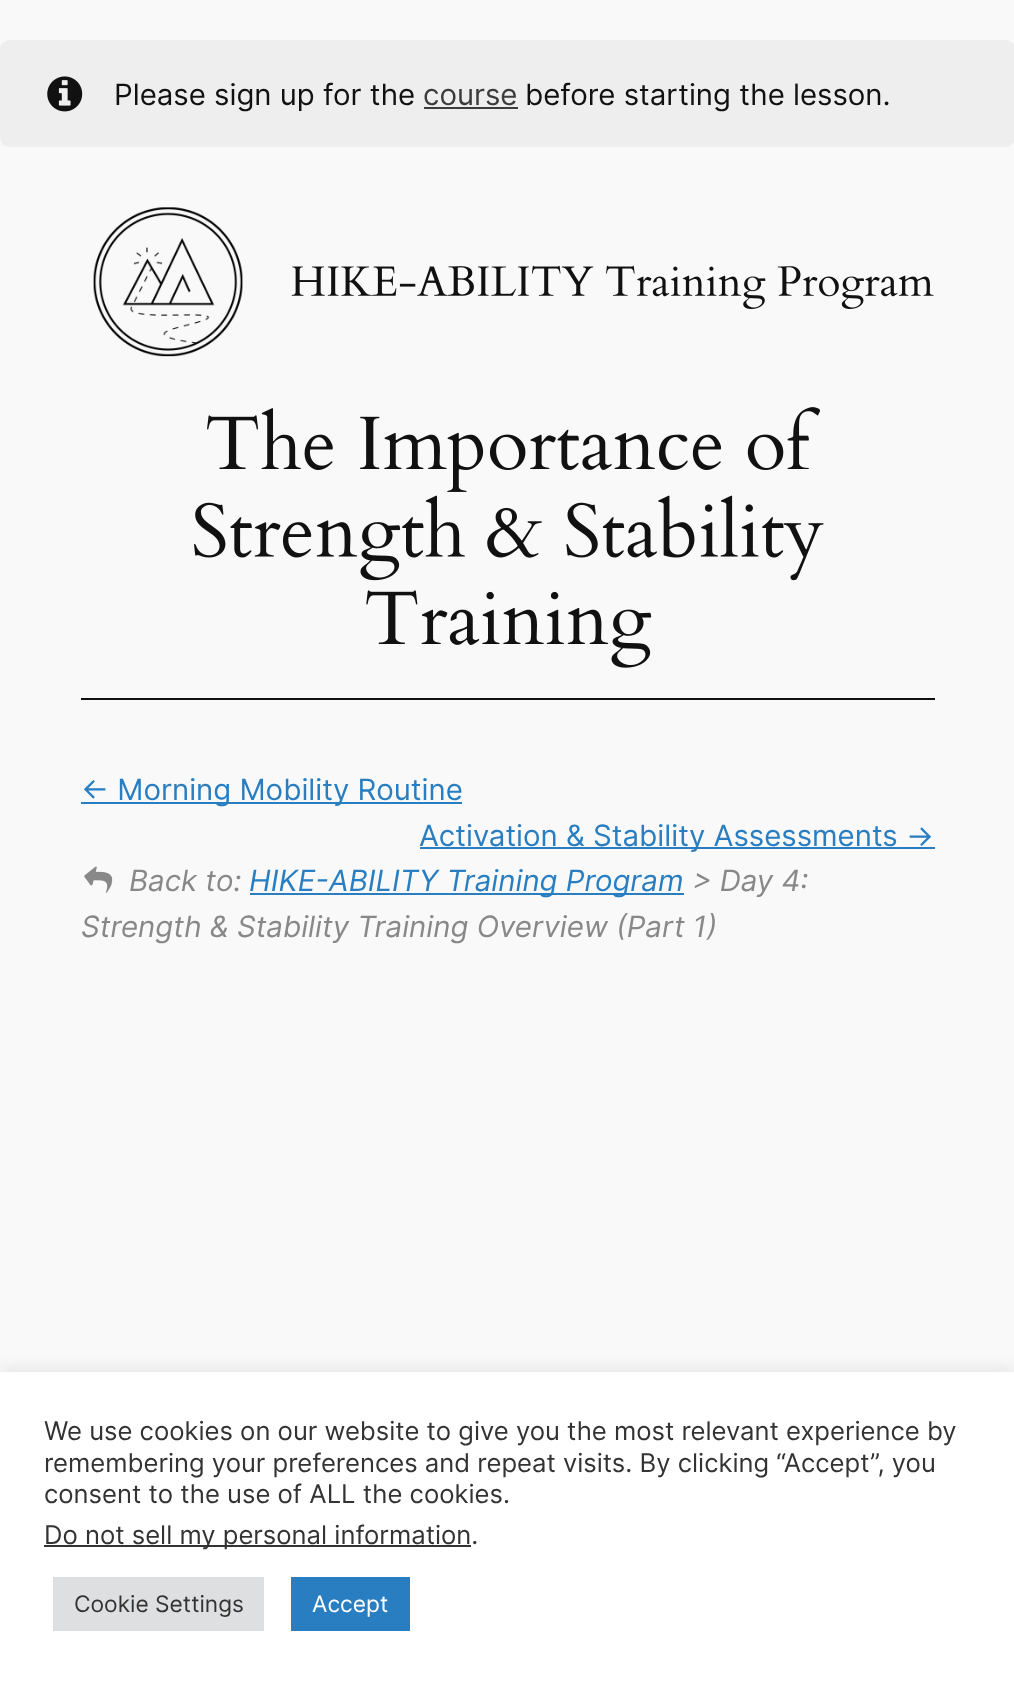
<svg xmlns="http://www.w3.org/2000/svg" width="1014" height="1683">
<style>
.a{font:29.4px Inter;fill:#111}
.b{font:29.4px Inter;fill:#3c3c3c}
.c{font:29.4px Inter;fill:#297ec1}
.d{font:italic 29.4px Inter;fill:#888}
.e{font:italic 29.4px Inter;fill:#297ec1}
.f{font:25.65px Inter;fill:#333}
.g{font:22.75px Inter;fill:#333}
.h{font:22.75px Inter;fill:#fff}
</style>
<rect width="100%" height="100%" fill="#f9f9f9"/>
<rect fill="#eee" y="40" width="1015" height="107" rx="9"/>
<image href="1.png" x="47" y="76" width="36" height="36"/>
<path fill="#3c3c3c" d="M424 107h94v2H424z"/>
<image href="2.png" x="93" y="207" width="150" height="150"/>
<image href="3.png" x="291" y="265" width="643" height="44"/>
<image href="4.png" x="207" y="407" width="613" height="85"/>
<image href="5.png" x="194" y="495" width="630" height="86"/>
<image href="6.png" x="366" y="590" width="286" height="78"/>
<path fill="#111" d="M81 698h854v2H81z"/>
<path fill="#297ec1" d="M81 802h381v2H81z"/>
<path fill="#297ec1" d="M420 847h515v2H420z"/>
<image href="7.png" x="84" y="866" width="29" height="27"/>
<path fill="#297ec1" d="M250 893h434v2H250z"/>
<path fill="#acabab4d" filter="blur(9px)" d="M0 1370h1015v312H0z"/>
<path fill="#fff" d="M0 1372h1014v311H0z"/>
<path fill="#333" d="M44 1545h427v2H44z"/>
<path fill="#dedfe0" d="M53 1577h211v54H53z"/>
<path fill="#297ec1" d="M291 1577h119v54H291z"/>
<text class="a" x="114" y="105">Please sign up for the</text>
<text class="b" x="423" y="105">course</text>
<text class="a" x="525" y="105">before starting the lesson.</text>
<text class="c" x="81" y="800">← Morning Mobility Routine</text>
<text class="c" x="419" y="846">Activation &amp; Stability Assessments</text>
<text class="c" x="906" y="846">→</text>
<text class="d" x="129" y="891">Back to:</text>
<text class="e" x="249" y="891">HIKE-ABILITY Training Program</text>
<text class="d" x="692" y="891">&gt; Day 4:</text>
<text class="d" x="81" y="937">Strength &amp; Stability Training Overview (Part 1)</text>
<text class="f" x="44" y="1440">We use cookies on our website to give you the most relevant experience by</text>
<text class="f" x="44" y="1472">remembering your preferences and repeat visits. By clicking “Accept”, you</text>
<text class="f" x="44" y="1503">consent to the use of ALL the cookies.</text>
<text class="f" x="44" y="1544">Do not sell my personal information.</text>
<text class="g" x="74" y="1612">Cookie Settings</text>
<text class="h" x="312" y="1612">Accept</text>
</svg>
